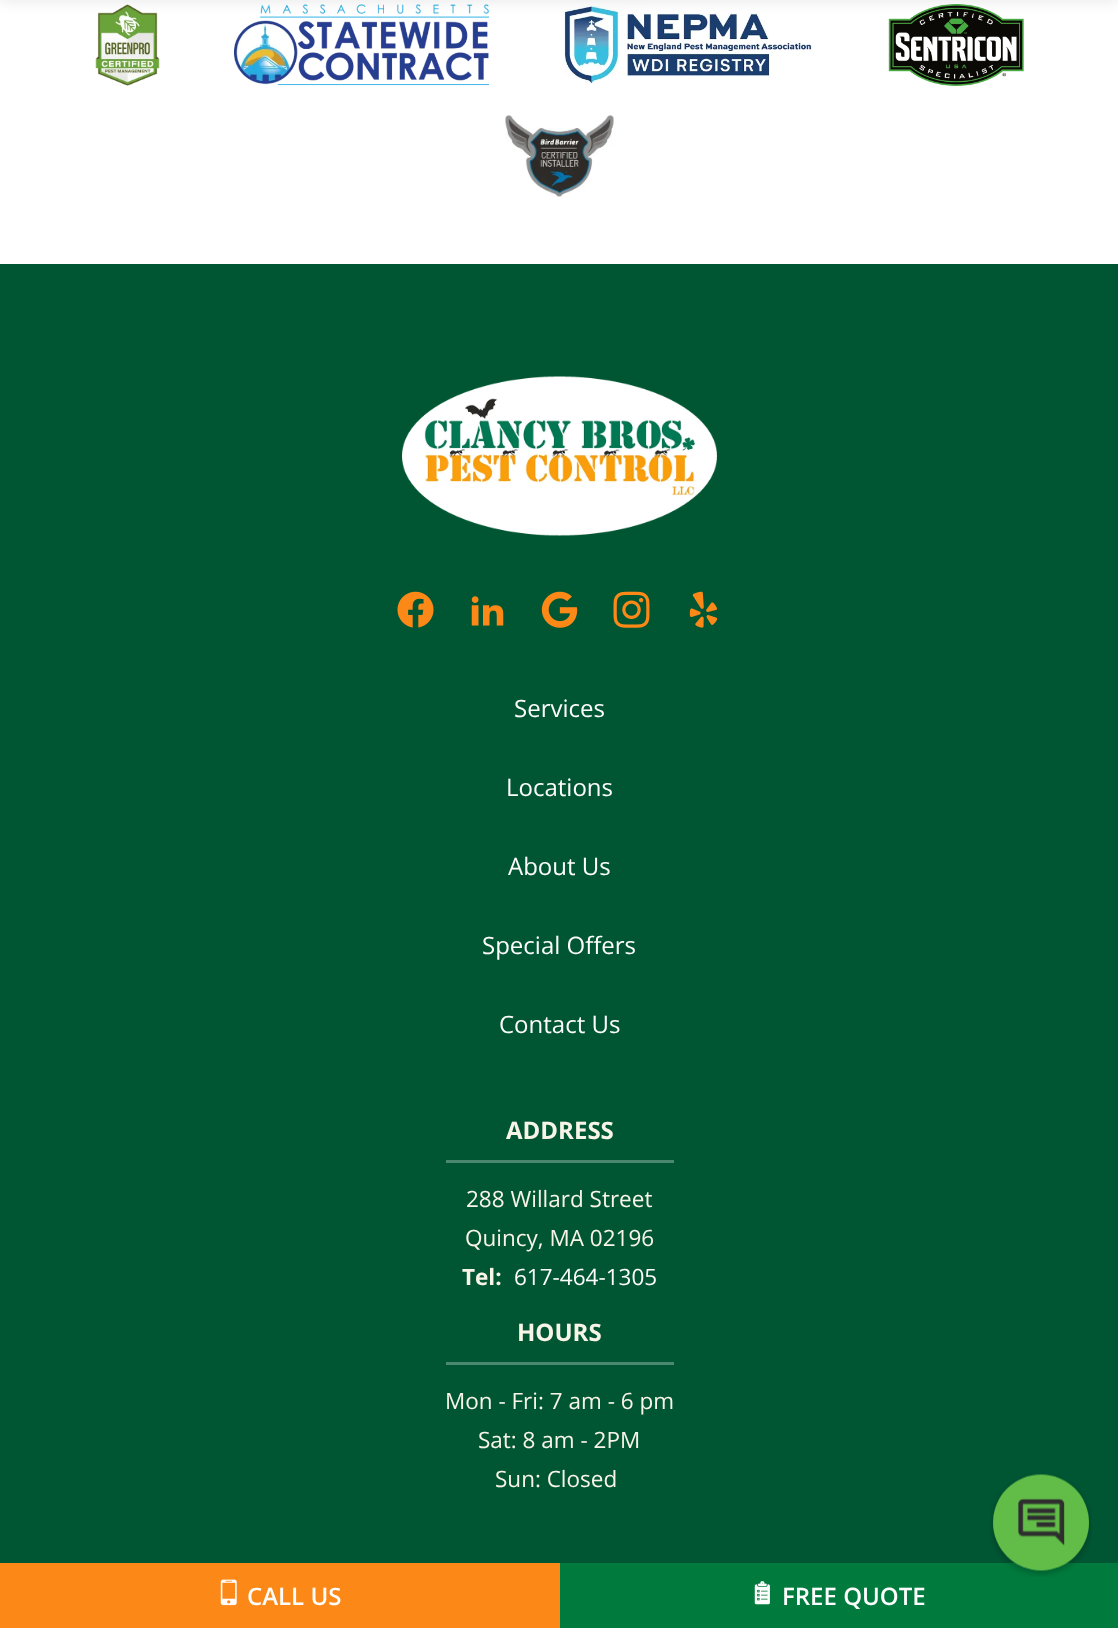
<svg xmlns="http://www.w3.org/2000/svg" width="1118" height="1628">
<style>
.a{font:24px Open Sans;fill:#fdfdfd}
.b{font:bold 24px Open Sans;fill:#f9f4e8}
.c{font:22.5px Open Sans;fill:#f9f4e8}
.d{font:bold 22.5px Open Sans;fill:#f9f4e8}
.e{font:22.5px Open Sans;fill:#fdfdfd}
.f{font:600 24px Open Sans;fill:#fdfdfd}
</style>
<rect width="100%" height="100%" fill="#fff"/>
<image href="1.png" x="95" y="4" width="65" height="82"/>
<image href="2.png" x="234" y="4" width="255" height="82"/>
<image href="3.png" x="563" y="5" width="250" height="80"/>
<image href="4.png" x="888" y="4" width="136" height="82"/>
<path fill="#0000001a" filter="blur(7.5px)" d="M0 -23h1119v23H0z"/>
<image href="5.png" x="505" y="115" width="109" height="82"/>
<path fill="#005633" d="M0 264h1118v1299H0z"/>
<image href="6.png" x="402" y="376" width="315" height="160"/>
<image href="7.png" x="397" y="591" width="37" height="37"/>
<image href="8.png" x="471" y="596" width="33" height="30"/>
<image href="9.png" x="541" y="591" width="37" height="37"/>
<image href="10.png" x="613" y="591" width="37" height="37"/>
<image href="11.png" x="689" y="591" width="29" height="37"/>
<path fill="#4c886f" d="M446 1160h228v3H446z"/>
<path fill="#4c886f" d="M446 1362h228v3H446z"/>
<path fill="#fc8917" d="M0 1563h560v65H0z"/>
<image href="12.png" x="220" y="1579" width="17" height="27"/>
<path fill="#007b3d" d="M560 1563h558v65H560z"/>
<image href="13.png" x="754" y="1581" width="16" height="24"/>
<image href="14.png" x="990" y="1474" width="102" height="103"/>
<text class="a" x="514" y="717">Services</text>
<text class="a" x="506" y="796">Locations</text>
<text class="a" x="508" y="875">About Us</text>
<text class="a" x="482" y="954">Special Offers</text>
<text class="a" x="499" y="1033">Contact Us</text>
<text class="b" x="506" y="1139">ADDRESS</text>
<text class="c" x="466" y="1207">288 Willard Street</text>
<text class="c" x="465" y="1246">Quincy, MA 02196</text>
<text class="d" x="462" y="1285">Tel:</text>
<text class="e" x="514" y="1285">617-464-1305</text>
<text class="b" x="517" y="1341">HOURS</text>
<text class="c" x="445" y="1409">Mon - Fri: 7 am - 6 pm</text>
<text class="c" x="478" y="1448">Sat: 8 am - 2PM</text>
<text class="c" x="495" y="1487">Sun: Closed</text>
<text class="f" x="247" y="1605">CALL US</text>
<text class="f" x="782" y="1605">FREE QUOTE</text>
</svg>
